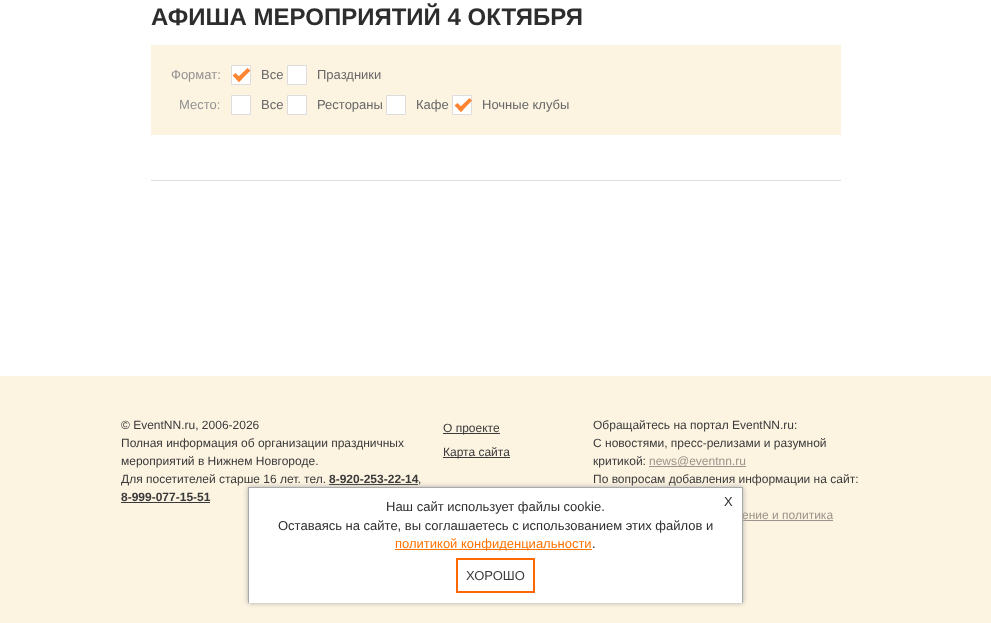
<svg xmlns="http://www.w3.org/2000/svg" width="991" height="623">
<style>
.a{font:bold 24px Liberation Sans;fill:#2d2d2d}
.b{font:13px Liberation Sans;fill:#929292}
.c{font:13px Liberation Sans;fill:#676767}
.d{font:12px Liberation Sans;fill:#3a3a3a}
.e{font:bold 12px Liberation Sans;fill:#3a3a3a}
.f{font:12px Liberation Sans;fill:#9d948b}
.g{font:13px Liberation Sans;fill:#2d2d2d}
.h{font:13px Liberation Sans;fill:#ff7200}
.i{font:13px Liberation Sans;fill:#3a3a3a}
</style>
<rect width="100%" height="100%" fill="#fff"/>
<path fill="#ddd" d="M151 180h690v1H151z"/>
<path fill="#fcf3e1" d="M151 45h690v90H151z"/>
<path fill="#fff" stroke="#ddd" d="M231.5 65.5h19v19H231.5z"/>
<path fill="#ff8533" d="M236 79l11.5-11l3 2.5l-11.5 11.5z"/>
<path fill="#ff8533" d="M232.5 75.5l3-2.5l6.5 6l-3 3z"/>
<path fill="#fff" stroke="#ddd" d="M287.5 65.5h19v19H287.5z"/>
<path fill="#fff" stroke="#ddd" d="M231.5 95.5h19v19H231.5z"/>
<path fill="#fff" stroke="#ddd" d="M287.5 95.5h19v19H287.5z"/>
<path fill="#fff" stroke="#ddd" d="M386.5 95.5h19v19H386.5z"/>
<path fill="#fff" stroke="#ddd" d="M452.5 95.5h19v19H452.5z"/>
<path fill="#ff8533" d="M458 109l11.5-11l2.5 2.5l-11 11.5z"/>
<path fill="#ff8533" d="M454.5 105.5l3-2.5l6 6l-2.5 3z"/>
<path fill="#fcf3e1" d="M0 376h991v247H0z"/>
<path fill="#3a3a3a" d="M329 484h89v1H329z"/>
<path fill="#3a3a3a" d="M121 502h89v1H121z"/>
<path fill="#3a3a3a" d="M443 433h57v1H443z"/>
<path fill="#3a3a3a" d="M443 457h67v1H443z"/>
<path fill="#9d948b" d="M649 466h97v1H649z"/>
<path fill="#9d948b" d="M743 520h90v1H743z"/>
<path fill="#aaa" filter="blur(2.5px)" d="M248 487h495v116H248z"/>
<path fill="#fff" d="M249 488h493v115H249z"/>
<path fill="#aaa" d="M248 487h495v1H248z"/>
<path fill="#aaa" d="M248 487h1v116H248z"/>
<path fill="#ff7200" d="M395 549h197v1H395z"/>
<path fill="none" stroke="#ff6700" stroke-width="2" d="M457 559h77v33H457z"/>
<text class="a" x="151" y="25">АФИША МЕРОПРИЯТИЙ 4 ОКТЯБРЯ</text>
<text class="b" x="171" y="79">Формат:</text>
<text class="c" x="261" y="79">Все</text>
<text class="c" x="317" y="79">Праздники</text>
<text class="b" x="179" y="109">Место:</text>
<text class="c" x="261" y="109">Все</text>
<text class="c" x="317" y="109">Рестораны</text>
<text class="c" x="416" y="109">Кафе</text>
<text class="c" x="482" y="109">Ночные клубы</text>
<text class="d" x="121" y="429">© EventNN.ru, 2006-2026</text>
<text class="d" x="121" y="447">Полная информация об организации праздничных</text>
<text class="d" x="121" y="465">мероприятий в Нижнем Новгороде.</text>
<text class="d" x="121" y="483">Для посетителей старше 16 лет. тел.</text>
<text class="e" x="329" y="483">8-920-253-22-14</text>
<text class="d" x="418" y="483">,</text>
<text class="e" x="121" y="501">8-999-077-15-51</text>
<text class="d" x="443" y="432">О проекте</text>
<text class="d" x="443" y="456">Карта сайта</text>
<text class="d" x="593" y="429">Обращайтесь на портал EventNN.ru:</text>
<text class="d" x="593" y="447">С новостями, пресс-релизами и разумной</text>
<text class="d" x="593" y="465">критикой:</text>
<text class="f" x="649" y="465">news@eventnn.ru</text>
<text class="d" x="593" y="483">По вопросам добавления информации на сайт:</text>
<text class="f" x="742" y="519">ение и политика</text>
<path fill="#aaa" d="M742 487h1v116H742z"/>
<text class="g" x="386" y="511">Наш сайт использует файлы cookie.</text>
<text class="g" x="278" y="530">Оставаясь на сайте, вы соглашаетесь с использованием этих файлов и</text>
<text class="h" x="395" y="548">политикой конфиденциальности</text>
<text class="g" x="592" y="548">.</text>
<text class="g" x="724" y="506">X</text>
<text class="i" x="466" y="580">ХОРОШО</text>
</svg>
